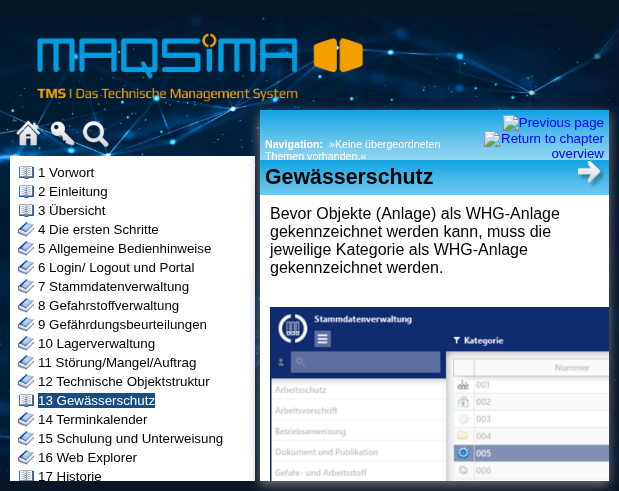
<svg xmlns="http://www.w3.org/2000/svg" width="619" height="491">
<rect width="100%" height="100%" fill="#fff"/>
<image href="1.png" x="0" y="0" width="619" height="491"/>
<path fill="#fff" d="M10 156h245v325H10z"/>
<path fill="#777" filter="blur(6px)" d="M260 114h349v371H260z"/>
<image href="2.png" x="37" y="33" width="327" height="69"/>
<image href="3.png" x="16" y="120" width="29" height="30"/>
<image href="4.png" x="50" y="121" width="29" height="29"/>
<image href="5.png" x="82" y="120" width="30" height="30"/>
<image href="6.png" x="260" y="110" width="349" height="371"/>
<image href="7.png" x="18" y="166" width="205" height="315"/>
</svg>
